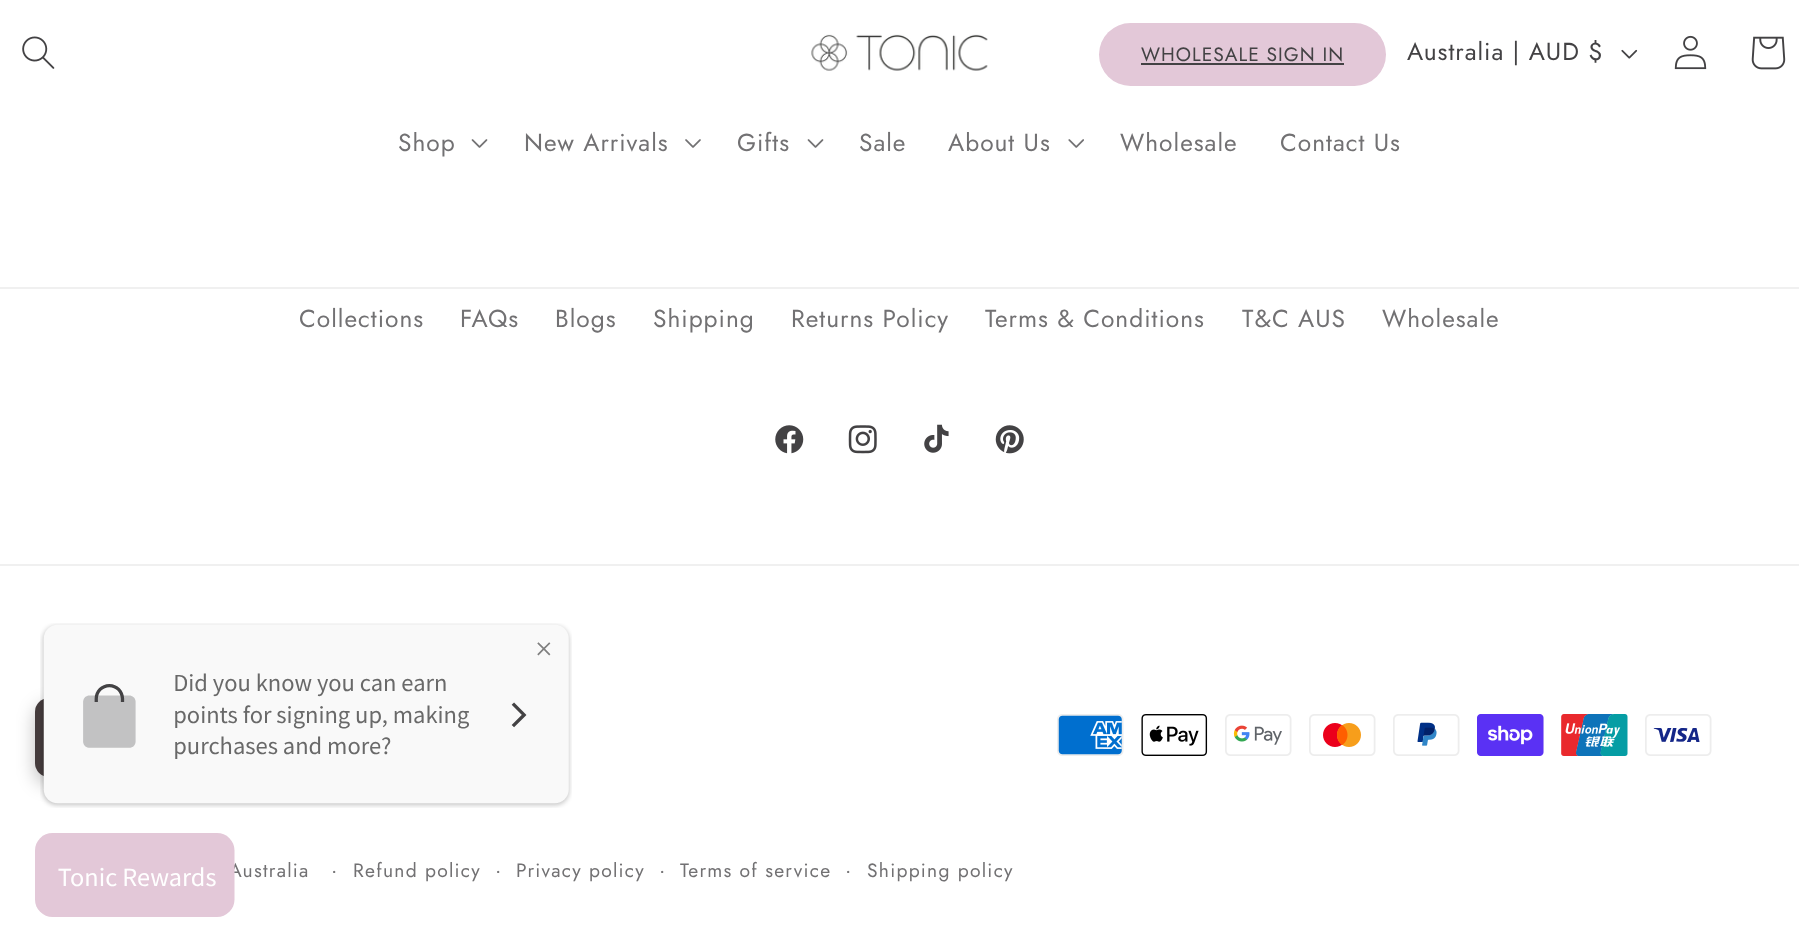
<svg xmlns="http://www.w3.org/2000/svg" width="1799" height="951">
<style>
.a{font:19.25px Jost;letter-spacing:1px;fill:#434244}
.b{font:24.5px Jost;letter-spacing:1px;fill:#434244}
.c{font:24.5px Jost;letter-spacing:1px;fill:#727173}
.d{font:19.25px Jost;letter-spacing:1.25px;fill:#727173}
.e{font:21px Jost;letter-spacing:1.25px;fill:#727173}
</style>
<rect width="100%" height="100%" fill="#fff"/>
<image href="1.png" x="22" y="36" width="33" height="33"/>
<image href="2.png" x="811" y="34" width="177" height="37"/>
<rect fill="#e3c8d8" x="1099" y="23" width="287" height="63" rx="31.5"/>
<path fill="#434244" d="M1141 63h203v2H1141z"/>
<image href="3.png" x="1621" y="49" width="17" height="10"/>
<image href="4.png" x="1674" y="35" width="33" height="35"/>
<image href="5.png" x="1751" y="36" width="35" height="34"/>
<image href="6.png" x="471" y="139" width="17" height="9"/>
<image href="7.png" x="685" y="139" width="16" height="9"/>
<image href="6.png" x="807" y="139" width="17" height="9"/>
<image href="8.png" x="1068" y="139" width="16" height="9"/>
<path fill="#f0f0f0" d="M0 287h1799v2H0z"/>
<image href="9.png" x="775" y="425" width="29" height="29"/>
<image href="10.png" x="848" y="425" width="29" height="29"/>
<image href="11.png" x="924" y="424" width="25" height="29"/>
<image href="12.png" x="995" y="425" width="29" height="29"/>
<path fill="#f0f0f0" d="M0 564h1799v2H0z"/>
<image href="13.png" x="1057" y="714" width="67" height="42"/>
<image href="14.png" x="1141" y="714" width="67" height="42"/>
<image href="15.png" x="1225" y="714" width="67" height="42"/>
<image href="16.png" x="1309" y="714" width="67" height="42"/>
<image href="17.png" x="1393" y="714" width="67" height="42"/>
<image href="18.png" x="1477" y="714" width="67" height="42"/>
<image href="19.png" x="1561" y="714" width="67" height="42"/>
<image href="20.png" x="1645" y="714" width="67" height="42"/>
<rect fill="#00000040" filter="blur(9px)" x="35" y="705" width="317" height="79" rx="14"/>
<rect fill="#443b3c" x="35" y="698" width="317" height="79" rx="14"/>
<image href="21.png" x="40" y="623" width="532" height="185"/>
<text class="a" x="1141" y="61">WHOLESALE SIGN IN</text>
<text class="b" x="1407" y="60">Australia | AUD $</text>
<text class="c" x="398" y="151">Shop</text>
<text class="c" x="524" y="151">New Arrivals</text>
<text class="c" x="737" y="151">Gifts</text>
<text class="c" x="859" y="151">Sale</text>
<text class="c" x="948" y="151">About Us</text>
<text class="c" x="1120" y="151">Wholesale</text>
<text class="c" x="1280" y="151">Contact Us</text>
<text class="c" x="299" y="327">Collections</text>
<text class="c" x="460" y="327">FAQs</text>
<text class="c" x="555" y="327">Blogs</text>
<text class="c" x="653" y="327">Shipping</text>
<text class="c" x="791" y="327">Returns Policy</text>
<text class="c" x="985" y="327">Terms &amp; Conditions</text>
<text class="c" x="1242" y="327">T&amp;C AUS</text>
<text class="c" x="1382" y="327">Wholesale</text>
<text class="d" x="229" y="877">Australia</text>
<text class="e" x="331" y="877">·</text>
<text class="d" x="353" y="877">Refund policy</text>
<text class="e" x="495" y="877">·</text>
<text class="d" x="516" y="877">Privacy policy</text>
<text class="e" x="659" y="877">·</text>
<text class="d" x="680" y="877">Terms of service</text>
<text class="e" x="845" y="877">·</text>
<text class="d" x="867" y="877">Shipping policy</text>
<image href="22.png" x="35" y="833" width="200" height="84"/>
</svg>
